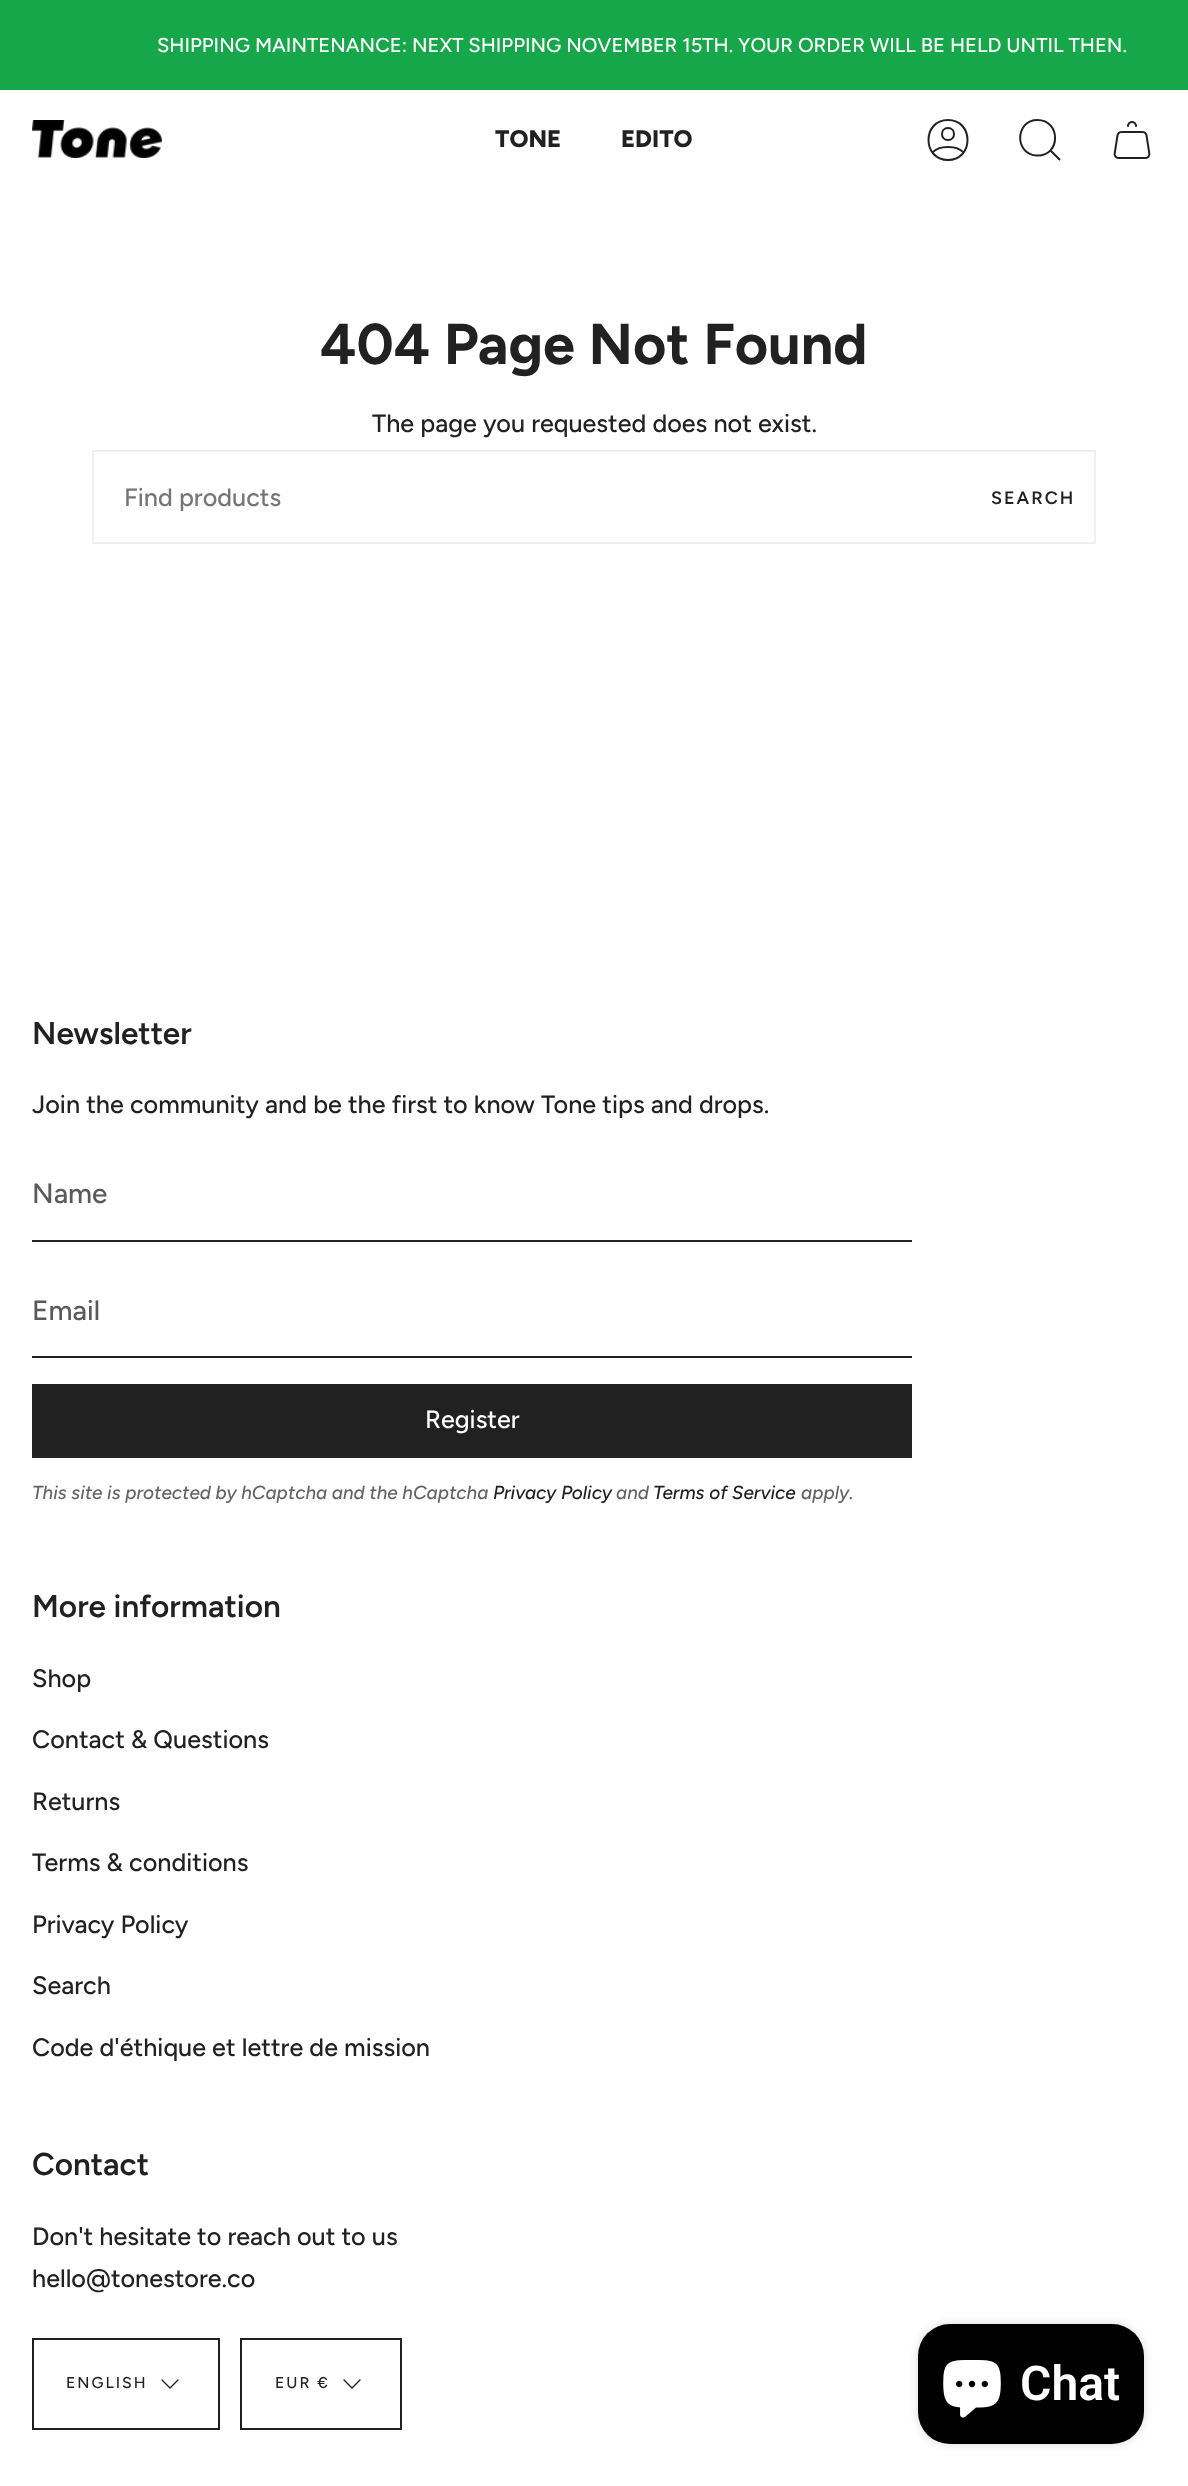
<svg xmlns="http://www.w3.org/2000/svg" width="1188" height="2486">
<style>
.a{font:500 20.15px Figtree;fill:#fff}
.b{font:800 24px Figtree;fill:#212121}
.c{font:bold 57.5px Figtree;fill:#212121}
.d{font:500 25.2px Figtree;fill:#212121}
.e{font:500 25.2px Figtree;fill:#757575}
.f{font:600 18px Figtree;letter-spacing:2px;fill:#212121}
.g{font:600 31.5px Figtree;fill:#212121}
.h{font:500 28px Figtree;fill:#595959}
.i{font:500 25.2px Figtree;fill:#fff}
.j{font:italic 500 18.9px Figtree;fill:#646464}
.k{font:italic 500 18.9px Figtree;fill:#212121}
.l{font:500 15.75px Figtree;letter-spacing:2px;fill:#212121}
.m{font:600 48px Roboto;fill:#fff}
</style>
<rect width="100%" height="100%" fill="#fff"/>
<path fill="#16a74a" d="M0 0h1188v90H0z"/>
<image href="1.png" x="32" y="120" width="130" height="38"/>
<path fill="none" stroke="#212121" stroke-width="2" stroke-linecap="round" stroke-linejoin="round" d="M948 120c-26 0-26 40 0 40c26 0 26-40 0-40zm-15.5 32.5c6-7.5 25-7.5 31 0m-15.5-12.5c8 0 8-12 0-12c-8 0-8 12 0 12z"/>
<path fill="none" stroke="#212121" stroke-width="2" d="M1037.5 120c23.5 0 23.5 36.5-.5 35.5c-23-1-22-35.5 .5-35.5zm12.5 30l10 10"/>
<image href="2.png" x="1113" y="121" width="38" height="38"/>
<path fill="none" stroke="#f0f0f0" stroke-width="2" d="M93 451h1002v92H93z"/>
<path fill="#212121" d="M32 1240h880v2H32z"/>
<path fill="#212121" d="M32 1356h880v2H32z"/>
<path fill="#212121" d="M32 1384h880v74H32z"/>
<path fill="none" stroke="#212121" stroke-width="2" d="M33 2339h186v90H33z"/>
<path fill="none" stroke="#212121" stroke-width="1.3" stroke-linecap="round" stroke-linejoin="round" d="M162 2380l8 8l8-8"/>
<path fill="none" stroke="#212121" stroke-width="2" d="M241 2339h160v90H241z"/>
<path fill="none" stroke="#212121" stroke-width="1.3" stroke-linecap="round" stroke-linejoin="round" d="M344 2380l8 8l8-8"/>
<rect fill="#00000026" filter="blur(5px)" x="918" y="2324" width="226" height="120" rx="32"/>
<rect fill="#000" x="918" y="2324" width="226" height="120" rx="32"/>
<image href="3.png" x="943" y="2360" width="58" height="58"/>
<text class="a" x="157" y="52">SHIPPING MAINTENANCE: NEXT SHIPPING NOVEMBER 15TH. YOUR ORDER WILL BE HELD UNTIL THEN.</text>
<text class="b" x="495" y="147">TONE</text>
<text class="b" x="621" y="147">EDITO</text>
<text class="c" x="320" y="364">404 Page Not Found</text>
<text class="d" x="372" y="432">The page you requested does not exist.</text>
<text class="e" x="124" y="506">Find products</text>
<text class="f" x="991" y="504">SEARCH</text>
<text class="g" x="32" y="1044">Newsletter</text>
<text class="d" x="32" y="1113">Join the community and be the first to know Tone tips and drops.</text>
<text class="h" x="32" y="1203">Name</text>
<text class="h" x="32" y="1320">Email</text>
<text class="i" x="425" y="1428">Register</text>
<text class="j" x="32" y="1499">This site is protected by hCaptcha and the hCaptcha</text>
<text class="k" x="493" y="1499">Privacy Policy</text>
<text class="j" x="616" y="1499">and</text>
<text class="k" x="653" y="1499">Terms of Service</text>
<text class="j" x="801" y="1499">apply.</text>
<text class="g" x="32" y="1617">More information</text>
<text class="d" x="32" y="1687">Shop</text>
<text class="d" x="32" y="1748">Contact &amp; Questions</text>
<text class="d" x="32" y="1810">Returns</text>
<text class="d" x="32" y="1871">Terms &amp; conditions</text>
<text class="d" x="32" y="1933">Privacy Policy</text>
<text class="d" x="32" y="1994">Search</text>
<text class="d" x="32" y="2056">Code d'éthique et lettre de mission</text>
<text class="g" x="32" y="2175">Contact</text>
<text class="d" x="32" y="2245">Don't hesitate to reach out to us</text>
<text class="d" x="32" y="2287">hello@tonestore.co</text>
<text class="l" x="66" y="2388">ENGLISH</text>
<text class="l" x="275" y="2388">EUR €</text>
<text class="m" x="1020" y="2400">Chat</text>
</svg>
